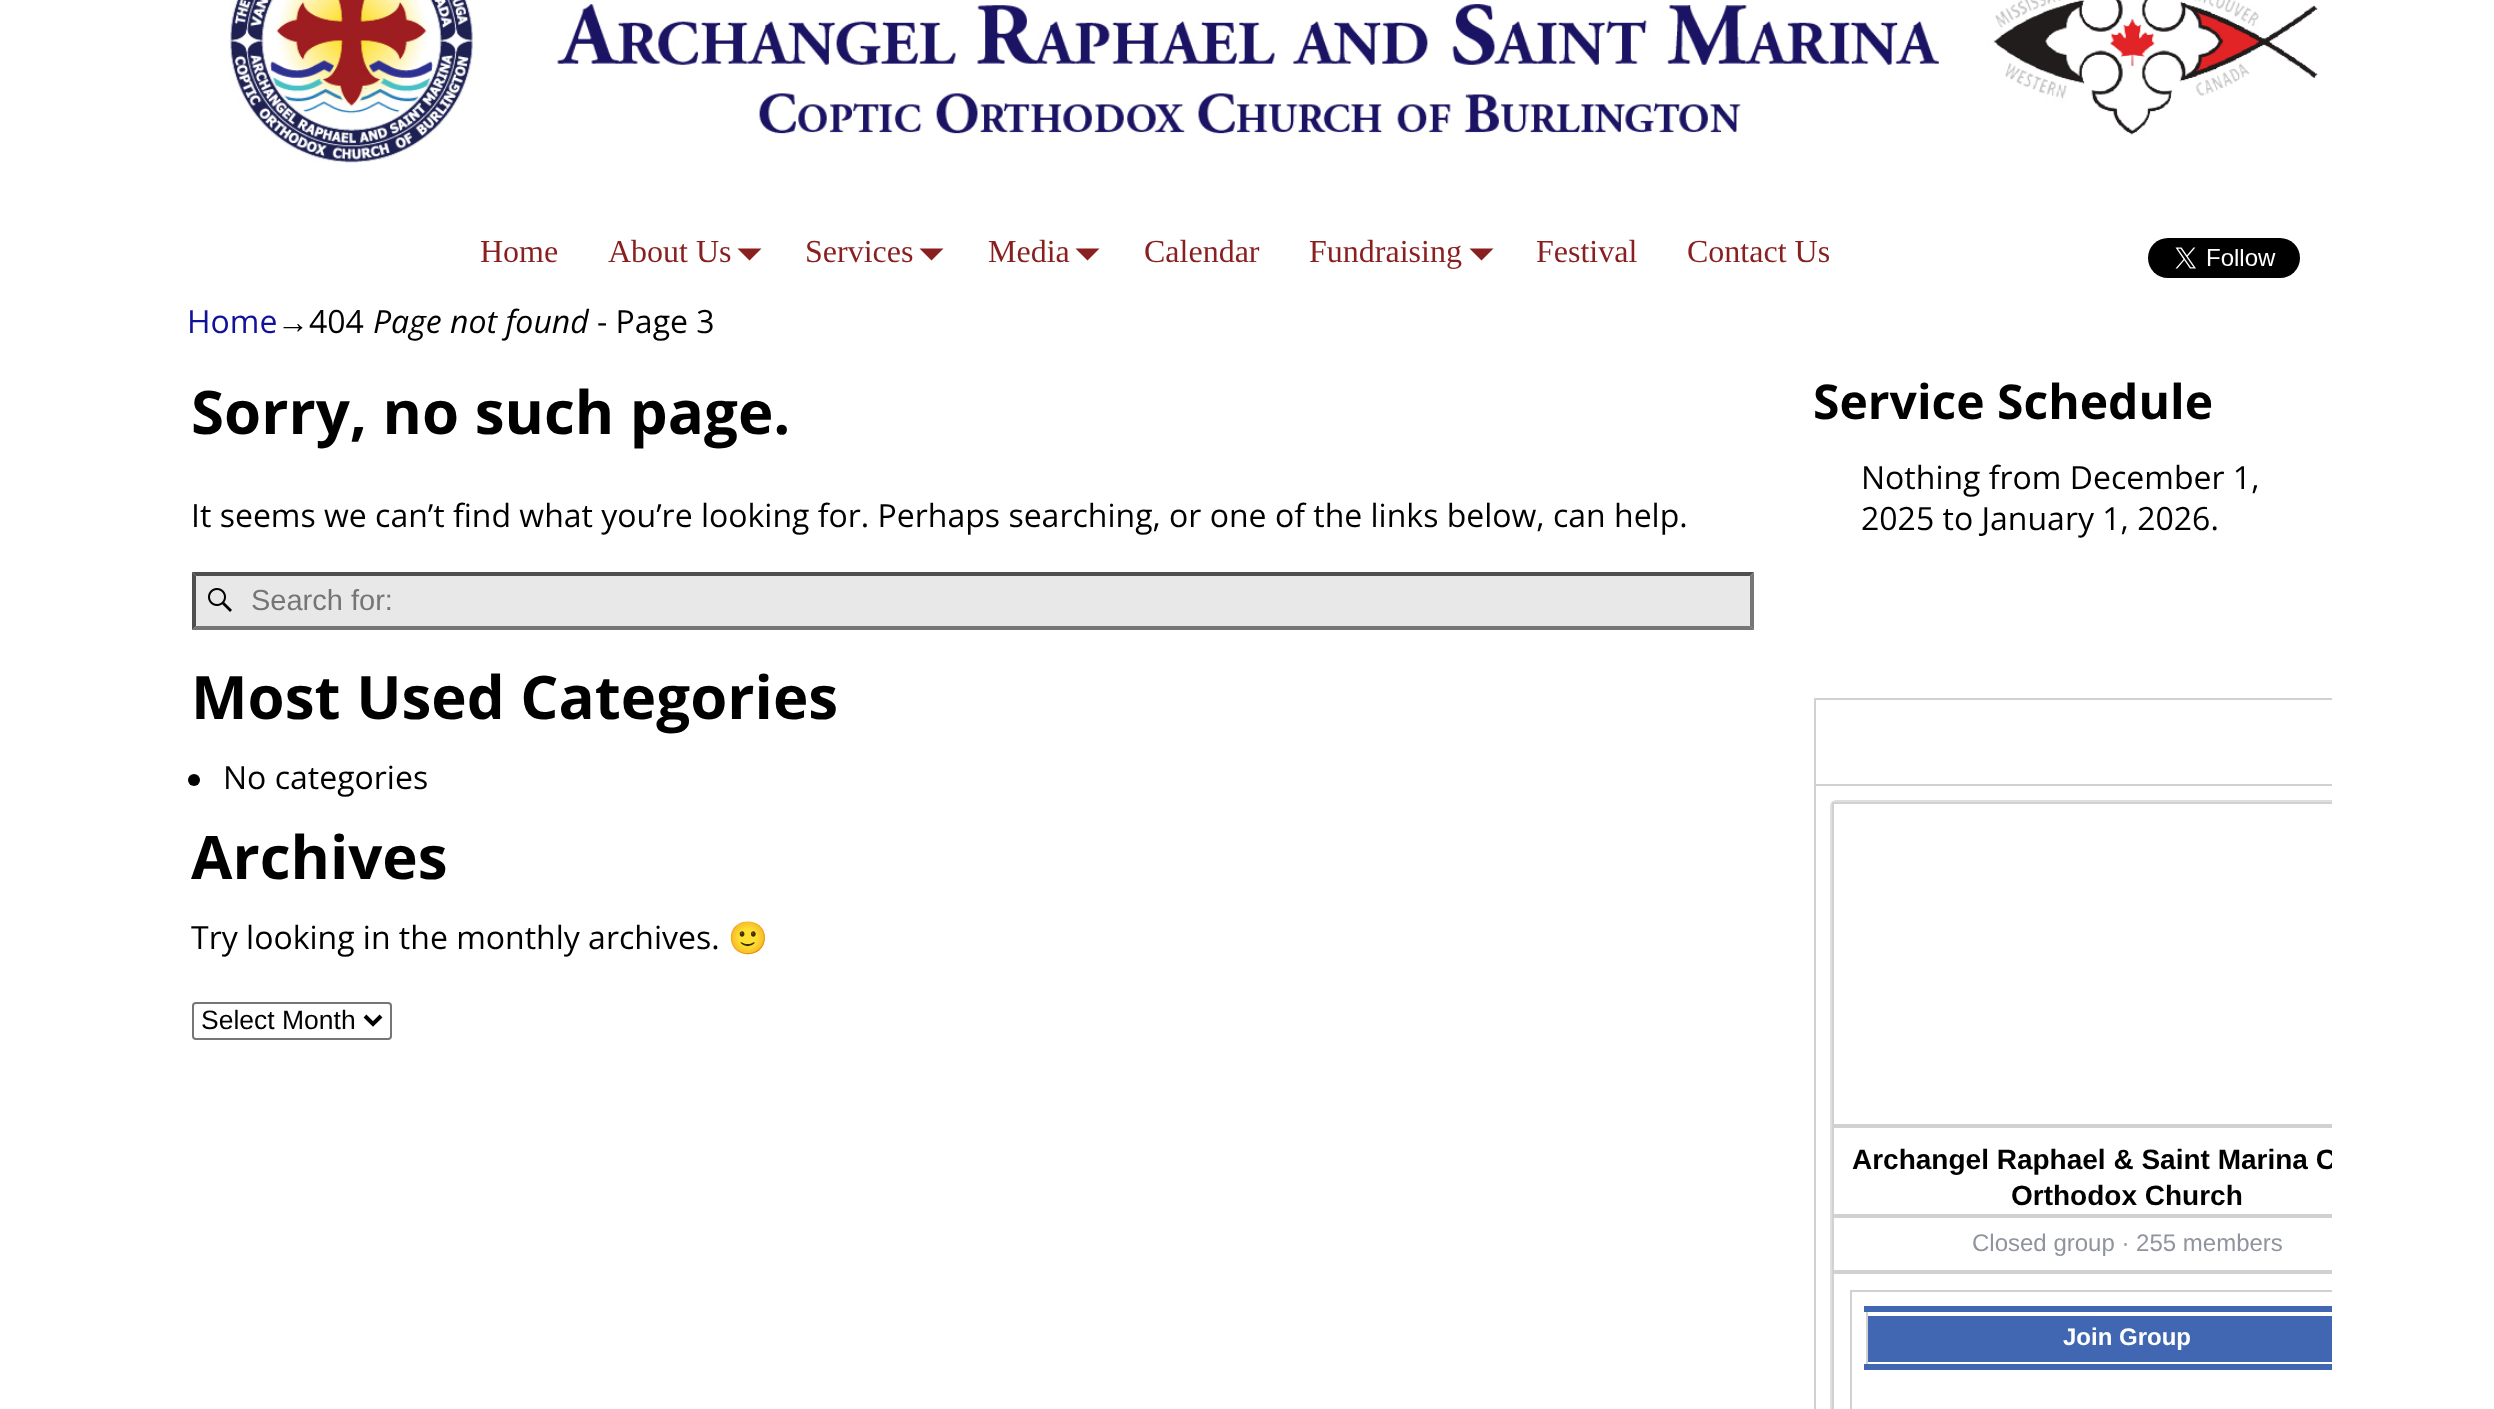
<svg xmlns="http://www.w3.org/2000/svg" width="2494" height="1409">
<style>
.a{font:32px Tinos;fill:#891f1f}
.b{font:32px Open Sans;fill:#119}
.c{font:32px Liberation Sans;fill:#000}
.d{font:32px Open Sans;fill:#000}
.e{font:italic 32px Open Sans;fill:#000}
.f{font:bold 60px Open Sans;fill:#000}
.g{font:29px Liberation Sans;fill:#757575}
.h{font:32px Noto Color Emoji;fill:#000}
.i{font:26.5px Liberation Sans;fill:#000}
.j{font:bold 48px Open Sans;fill:#000}
.k{font:bold 28px Liberation Sans;fill:#000}
.l{font:24px Liberation Sans;fill:#90949c}
.m{font:bold 24px Liberation Sans;fill:#fff}
</style>
<defs>
<clipPath id="clip1"><path d="M1814 698h518v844H1814z"/></clipPath>
</defs>
<rect width="100%" height="100%" fill="#fff"/>
<image href="1.png" x="229" y="0" width="2089" height="163"/>
<path fill="#891f1f" d="M737.5 248.5h24l-12 12z"/>
<path fill="#891f1f" d="M919.5 248.5h24l-12 12z"/>
<path fill="#891f1f" d="M1075.5 248.5h24l-12 12z"/>
<path fill="#891f1f" d="M1469.5 248.5h24l-12 12z"/>
<image href="2.png" x="2148" y="238" width="152" height="40"/>
<path fill="#e8e8e8" d="M192 572h1562v58H192z"/>
<image href="3.png" x="208" y="588" width="24" height="24"/>
<path fill="#4f4f4f" d="M192 572h1562l-4 4h-1554z"/>
<path fill="#767676" d="M1754 572v58l-4-4v-50z"/>
<path fill="#767676" d="M1754 630h-1562l4-4h1554z"/>
<path fill="#4f4f4f" d="M192 630v-58l4 4v50z"/>
<circle fill="#000" cx="194" cy="780" r="6"/>
<rect fill="none" stroke="#767676" stroke-width="2" x="193" y="1003" width="198" height="36" rx="3"/>
<path fill="none" stroke="#000" stroke-width="4" d="M365 1016l8 8l8-8"/>
<path fill="#d1d1d1" d="M1814 698h518v2H1814z"/>
<path fill="#d1d1d1" d="M1814 698h2v711H1814z"/>
<path fill="#d1d1d1" d="M1814 784h518v2H1814z"/>
<g clip-path="url(#clip1)">
<rect fill="none" stroke="#dddfe2" stroke-width="2" x="1831" y="801" width="594" height="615" rx="5"/>
<path fill="none" stroke="#d1d1d1" stroke-width="2" d="M1833 803h590v322H1833z"/>
<path fill="none" stroke="#d1d1d1" stroke-width="2" d="M1833 1127h590v88H1833z"/>
<path fill="none" stroke="#d1d1d1" stroke-width="2" d="M1833 1217h590v54H1833z"/>
<path fill="none" stroke="#d1d1d1" stroke-width="2" d="M1833 1273h590v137H1833z"/>
</g>
<path fill="#d1d1d1" d="M1850 1290h482v2H1850z"/>
<path fill="#d1d1d1" d="M1850 1290h2v119H1850z"/>
<path fill="#d1d1d1" d="M1866 1306h2v64H1866z"/>
<g clip-path="url(#clip1)">
<path fill="#4267b2" d="M1872 1316h514v46h-518v-46z"/>
</g>
<path fill="#4267b2" d="M1864 1306h468v6H1864z"/>
<path fill="#4267b2" d="M1864 1364h468v6H1864z"/>
<text class="a" x="480" y="262">Home</text>
<text class="a" x="608" y="262">About Us</text>
<text class="a" x="805" y="262">Services</text>
<text class="a" x="988" y="262">Media</text>
<text class="a" x="1144" y="262">Calendar</text>
<text class="a" x="1309" y="262">Fundraising</text>
<text class="a" x="1536" y="262">Festival</text>
<text class="a" x="1687" y="262">Contact Us</text>
<text class="b" x="187" y="333">Home</text>
<text class="c" x="277" y="333">→</text>
<text class="d" x="309" y="333">404</text>
<text class="e" x="373" y="333">Page not found</text>
<text class="d" x="597" y="333">- Page 3</text>
<text class="f" x="191" y="434">Sorry, no such page.</text>
<text class="d" x="191" y="527">It seems we can’t find what you’re looking for. Perhaps searching, or one of the links below, can help.</text>
<text class="g" x="251" y="610">Search for:</text>
<text class="f" x="191" y="719">Most Used Categories</text>
<text class="d" x="223" y="789">No categories</text>
<text class="f" x="191" y="879">Archives</text>
<text class="d" x="191" y="949">Try looking in the monthly archives.</text>
<text class="h" x="728" y="949">🙂</text>
<text class="i" x="201" y="1029">Select Month</text>
<text class="j" x="1813" y="419">Service Schedule</text>
<text class="d" x="1861" y="489">Nothing from December 1,</text>
<text class="d" x="1861" y="530">2025 to January 1, 2026.</text>
<g clip-path="url(#clip1)">
<text class="k" x="1852" y="1169">Archangel Raphael &amp; Saint Marina C</text>
</g>
<text class="k" x="2011" y="1205">Orthodox Church</text>
<text class="l" x="1972" y="1251">Closed group · 255 members</text>
<text class="m" x="2063" y="1345">Join Group</text>
</svg>
